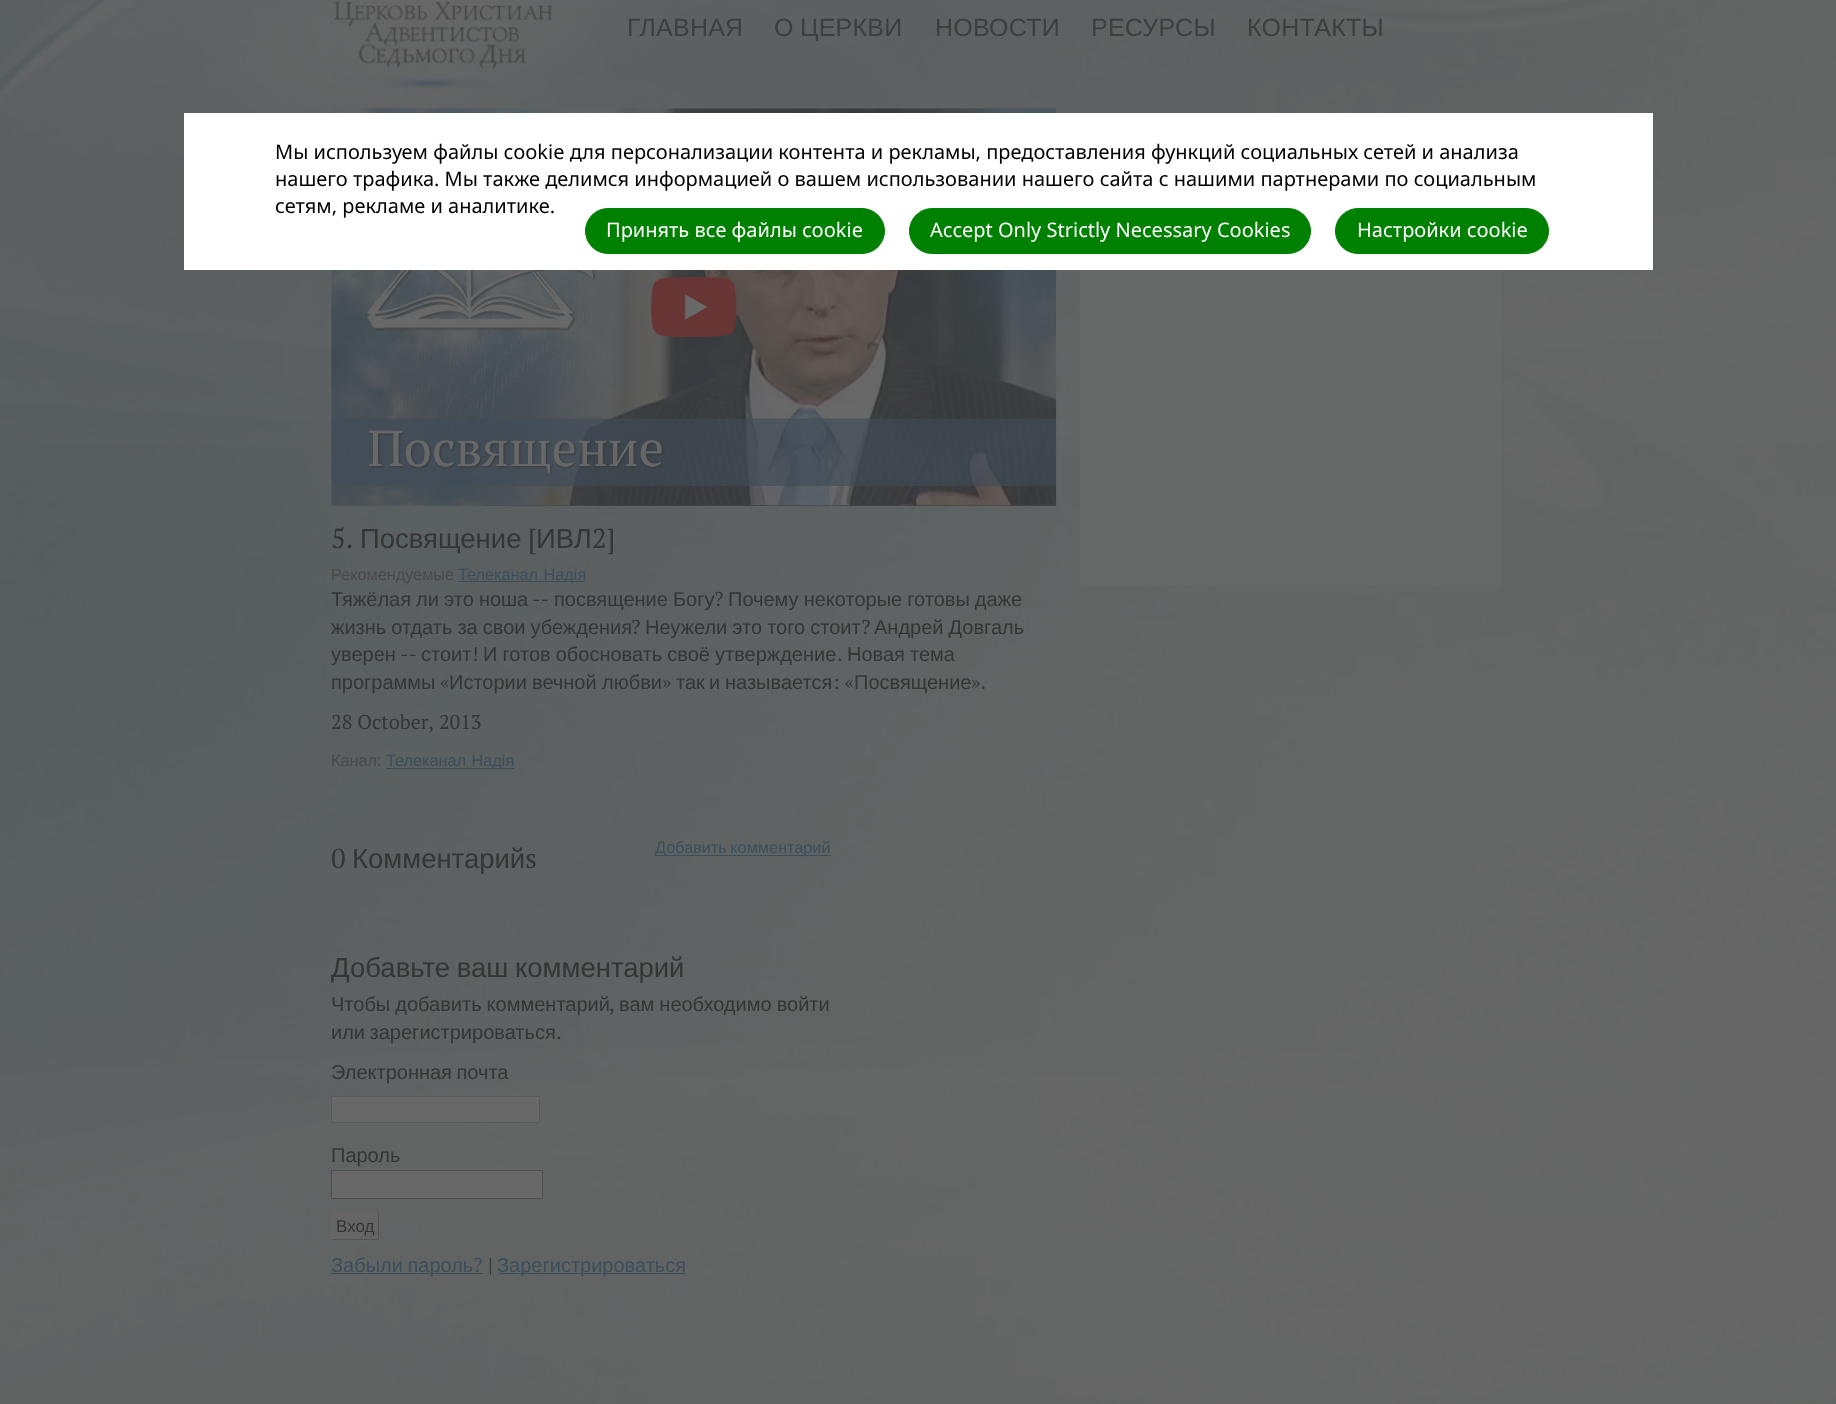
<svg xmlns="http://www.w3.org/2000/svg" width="1836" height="1404">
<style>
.a{font:25px Liberation Sans;letter-spacing:0.25px;fill:#3e3e3e}
.b{font:27.5px PT Serif;fill:#353535}
.c{font:27.5px Liberation Sans;fill:#353535}
.d{font:16.25px Liberation Sans;fill:#494949}
.e{font:16.25px Liberation Sans;fill:#3b4e5b}
.f{font:20px Liberation Sans;fill:#353535}
.g{font:20px PT Serif;fill:#353535}
.h{font:17px Liberation Sans;fill:#353535}
.i{font:20px Liberation Sans;fill:#3b4e5b}
.j{font:20px PT Serif;fill:#3b4e5b}
.k{font:20px Noto Sans;fill:#000}
.l{font:20px Noto Sans;fill:#fff}
</style>
<rect width="100%" height="100%" fill="#fff"/>
<image href="1.png" x="0" y="0" width="1836" height="1404"/>
<image href="2.png" x="333" y="1" width="220" height="89"/>
<rect fill="#666767" stroke="#686868" x="1080.5" y="196.5" width="420" height="389" rx="2"/>
<path fill="#616161" d="M331 109h725v397H331z"/>
<image href="3.png" x="331" y="108" width="726" height="398"/>
<image href="4.png" x="651" y="277" width="86" height="60"/>
<path fill="#3b4e5b" d="M458 581h127v1H458z"/>
<path fill="#3b4e5b" d="M386 768h128v1H386z"/>
<path fill="#3b4e5b" d="M655 855h176v1H655z"/>
<path fill="#686868" stroke="#5a5a5a" d="M331.5 1096.5h208v26H331.5z"/>
<path fill="#686868" stroke="#4f4f4f" d="M331.5 1170.5h211v28H331.5z"/>
<path fill="#656565" d="M332 1211h46v28H332z"/>
<path fill="#555" d="M378 1211h1v29H378z"/>
<path fill="#555" d="M331 1239h48v1H331z"/>
<path fill="#656565" d="M331 1211h1v29H331z"/>
<path fill="#3b4e5b" d="M331 1273h152v1H331z"/>
<path fill="#3b4e5b" d="M498 1273h188v1H498z"/>
<path fill="#fff" d="M184 113h1469v157H184z"/>
<rect fill="#008000" stroke="#008000" x="585.5" y="208.5" width="299" height="45" rx="22.5"/>
<rect fill="#008000" stroke="#008000" x="909.5" y="208.5" width="401" height="45" rx="22.5"/>
<rect fill="#008000" stroke="#008000" x="1335.5" y="208.5" width="213" height="45" rx="22.5"/>
<text class="a" x="627" y="36">ГЛАВНАЯ</text>
<text class="a" x="774" y="36" word-spacing="-1">О ЦЕРКВИ</text>
<text class="a" x="935" y="36">НОВОСТИ</text>
<text class="a" x="1091" y="36">РЕСУРСЫ</text>
<text class="a" x="1247" y="36">КОНТАКТЫ</text>
<text class="b" x="331" y="548">5.</text>
<text class="c" x="360" y="548">Посвящение</text>
<text class="b" x="528" y="548">[</text>
<text class="c" x="536" y="548">ИВЛ</text>
<text class="b" x="592" y="548">2]</text>
<text class="d" x="331" y="580">Рекомендуемые</text>
<text class="e" x="458" y="580" word-spacing="1">Телеканал Надiя</text>
<text class="f" x="331" y="606" word-spacing="-0.5">Тяжёлая ли это ноша</text>
<text class="g" x="532" y="606">--</text>
<text class="f" x="554" y="606" word-spacing="-0.5">посвящение Богу</text>
<text class="g" x="714" y="606">?</text>
<text class="f" x="728" y="606" word-spacing="-0.5">Почему некоторые готовы даже</text>
<text class="f" x="331" y="634" word-spacing="-0.5">жизнь отдать за свои убеждения</text>
<text class="g" x="631" y="634">?</text>
<text class="f" x="645" y="634" word-spacing="-0.5">Неужели это того стоит</text>
<text class="g" x="861" y="634">?</text>
<text class="f" x="874" y="634" word-spacing="-0.5">Андрей Довгаль</text>
<text class="f" x="331" y="661">уверен</text>
<text class="g" x="400" y="661">--</text>
<text class="f" x="421" y="661">стоит</text>
<text class="g" x="472" y="661">!</text>
<text class="f" x="483" y="661" word-spacing="-0.5">И готов обосновать своё утверждение</text>
<text class="f" x="847" y="661" word-spacing="-0.5">Новая тема</text>
<text class="g" x="837" y="661">.</text>
<text class="f" x="331" y="689">программы</text>
<text class="g" x="440" y="689">«</text>
<text class="f" x="449" y="689">Истории</text>
<text class="f" x="532" y="689">вечной</text>
<text class="f" x="602" y="689">любви</text>
<text class="g" x="662" y="689">»</text>
<text class="f" x="676" y="689">так</text>
<text class="f" x="709" y="689">и</text>
<text class="f" x="725" y="689">называется</text>
<text class="g" x="833" y="689">: «</text>
<text class="f" x="854" y="689">Посвящение</text>
<text class="g" x="971" y="689">».</text>
<text class="g" x="331" y="729">28 October, 2013</text>
<text class="d" x="331" y="766">Канал:</text>
<text class="e" x="386" y="766" word-spacing="1">Телеканал Надiя</text>
<text class="b" x="331" y="868">0</text>
<text class="c" x="352" y="868">Комментарий</text>
<text class="b" x="525" y="868">s</text>
<text class="e" x="655" y="853" word-spacing="-1">Добавить комментарий</text>
<text class="c" x="331" y="977" word-spacing="-1">Добавьте ваш комментарий</text>
<text class="f" x="331" y="1011" word-spacing="-0.5">Чтобы добавить комментарий</text>
<text class="g" x="609" y="1011">,</text>
<text class="f" x="619" y="1011" word-spacing="-0.5">вам необходимо войти</text>
<text class="f" x="331" y="1039" word-spacing="-1">или зарегистрироваться</text>
<text class="g" x="556" y="1039">.</text>
<text class="f" x="331" y="1079" word-spacing="-1">Электронная почта</text>
<text class="f" x="331" y="1162">Пароль</text>
<text class="h" x="336" y="1232">Вход</text>
<text class="i" x="331" y="1272" word-spacing="-1">Забыли пароль</text>
<text class="j" x="473" y="1272">?</text>
<text class="g" x="488" y="1272">|</text>
<text class="i" x="497" y="1272">Зарегистрироваться</text>
<text class="k" x="275" y="159">Мы используем файлы cookie для персонализации контента и рекламы, предоставления функций социальных сетей и анализа</text>
<text class="k" x="275" y="186">нашего трафика. Мы также делимся информацией о вашем использовании нашего сайта с нашими партнерами по социальным</text>
<text class="k" x="275" y="213">сетям, рекламе и аналитике.</text>
<text class="l" x="606" y="237">Принять все файлы cookie</text>
<text class="l" x="930" y="237">Accept Only Strictly Necessary Cookies</text>
<text class="l" x="1357" y="237">Настройки cookie</text>
</svg>
